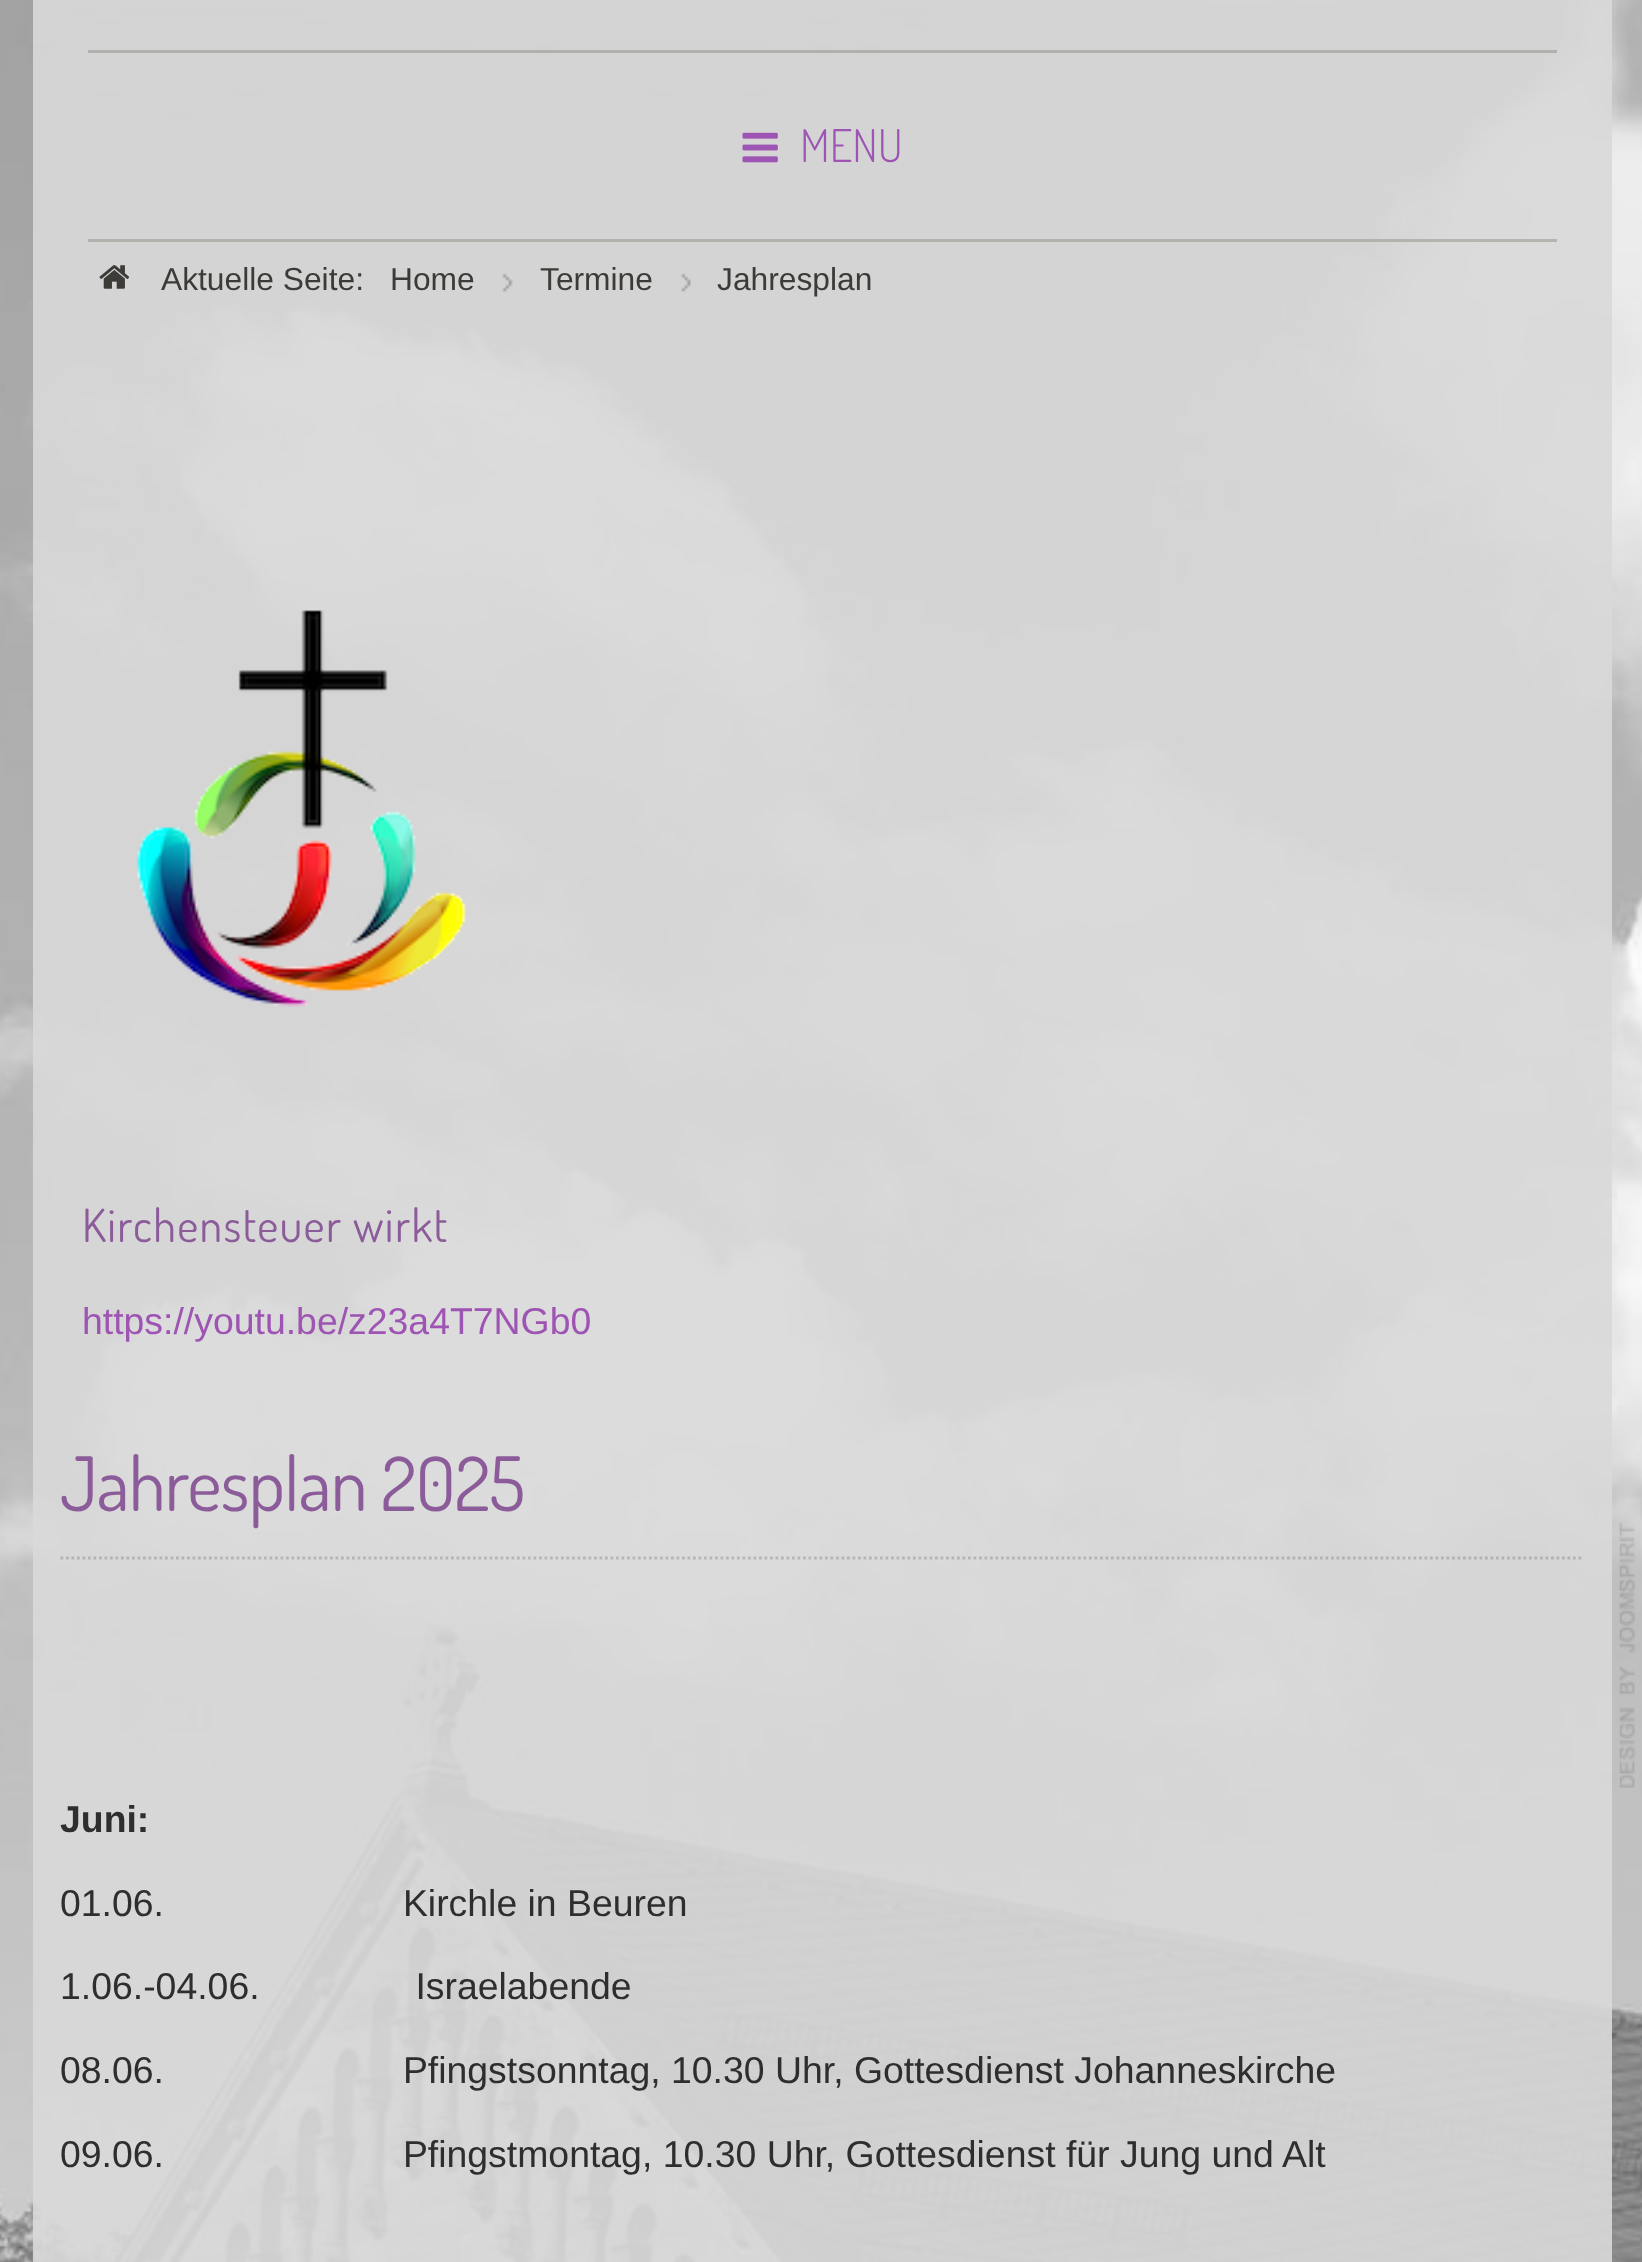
<svg xmlns="http://www.w3.org/2000/svg" width="1642" height="2262">
<style>
.a{font:300 45px Dosis;fill:#9e54b3}
.b{font:31.75px Liberation Sans;fill:#3d3b38}
.c{font:45.75px Dosis;letter-spacing:1.4px;fill:#8b5c99}
.d{font:37.4px Liberation Sans;fill:#9e54b3}
.e{font:74.75px Dosis;letter-spacing:-0.8px;fill:#8b5c99}
.f{font:bold 37.4px Liberation Sans;fill:#2e2e2e}
.g{font:37.4px Liberation Sans;fill:#2e2e2e}
</style>
<rect width="100%" height="100%" fill="#fff"/>
<image href="1.png" x="0" y="0" width="1642" height="2262"/>
<path fill="#b2b0ac" d="M88 50h1469v3H88z"/>
<path fill="#908d8480" d="M88 239h1469v3H88z"/>
<image href="2.png" x="742" y="132" width="36" height="31"/>
<image href="3.png" x="99" y="265" width="31" height="24"/>
<image href="4.png" x="502" y="273" width="11" height="19"/>
<image href="5.png" x="681" y="273" width="10" height="19"/>
<image href="6.png" x="136" y="609" width="330" height="398"/>
<path fill="none" stroke="#0000002b" stroke-width="2.8" stroke-dasharray="2.75 2.75" d="M60.5 1558h1523.5"/>
<image href="7.png" x="1619" y="1523" width="17" height="265"/>
<text class="a" x="800" y="162">MENU</text>
<text class="b" x="161" y="290">Aktuelle Seite:</text>
<text class="b" x="390" y="290">Home</text>
<text class="b" x="540" y="290">Termine</text>
<text class="b" x="717" y="290">Jahresplan</text>
<text class="c" x="82" y="1242">Kirchensteuer wirkt</text>
<text class="d" x="82" y="1334">https://youtu.be/z23a4T7NGb0</text>
<text class="e" x="60" y="1511">Jahresplan 2025</text>
<text class="f" x="60" y="1832">Juni:</text>
<text class="g" xml:space="preserve" x="60" y="1916">01.06.                       Kirchle in Beuren</text>
<text class="g" xml:space="preserve" x="60" y="1999">1.06.-04.06.               Israelabende</text>
<text class="g" xml:space="preserve" x="60" y="2083">08.06.                       Pfingstsonntag, 10.30 Uhr, Gottesdienst Johanneskirche</text>
<text class="g" xml:space="preserve" x="60" y="2167">09.06.                       Pfingstmontag, 10.30 Uhr, Gottesdienst für Jung und Alt</text>
</svg>
